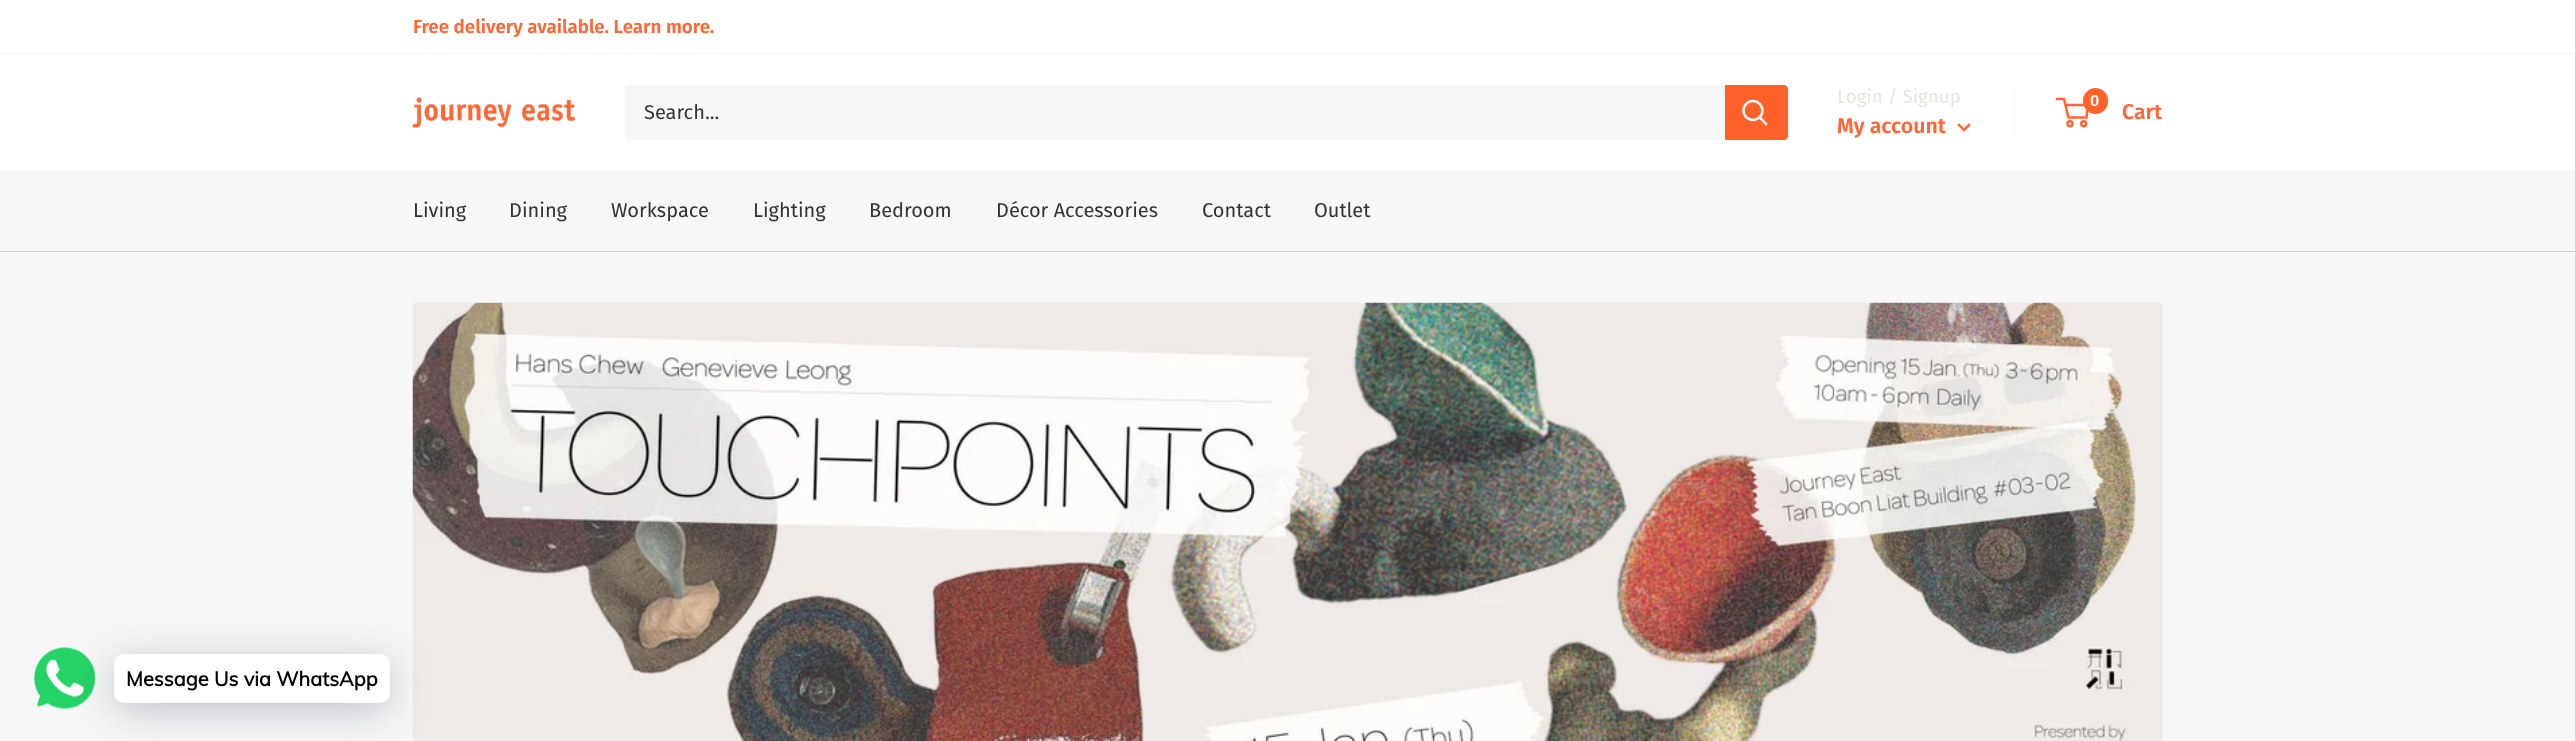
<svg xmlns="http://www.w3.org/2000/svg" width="2575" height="741">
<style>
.a{font:600 18.75px Fira Sans;fill:#f63}
.b{font:20px Fira Sans;fill:#333}
.c{font:18.75px Fira Sans;fill:#e9e2dd}
.d{font:600 21.25px Fira Sans;fill:#f63}
.e{font:600 16px Fira Sans;fill:#f7f7f7}
.f{font:bold 20px Muli;fill:#000}
</style>
<rect width="100%" height="100%" fill="#f7f7f7"/>
<path fill="#fff" d="M0 0h2575v53H0z"/>
<path fill="#fff" d="M0 54h2575v117H0z"/>
<image href="1.png" x="412" y="97" width="163" height="31"/>
<rect fill="#f7f7f7" x="625" y="85" width="1163" height="55" rx="4"/>
<path fill="#ff6128" d="M1725 85h59c2 0 4 2 4 4v47c0 2-2 4-4 4h-59z"/>
<path fill="none" stroke="#f7f7f7" stroke-width="2.5" stroke-linecap="square" d="M1766 124l-6-6.5"/>
<circle fill="none" stroke="#f7f7f7" stroke-width="2.5" cx="1753" cy="110.5" r="9.5"/>
<path fill="#f8f6f5" d="M2014 91h1v43H2014z"/>
<path fill="none" stroke="#f63" stroke-width="2.5" stroke-linecap="square" d="M1969 125l-5 5l-5-5"/>
<circle fill="none" stroke="#f63" stroke-width="2.5" cx="2070" cy="123.8" r="2.5"/>
<circle fill="none" stroke="#f63" stroke-width="2.5" cx="2083.8" cy="123.8" r="2.5"/>
<path fill="none" stroke="#f63" stroke-width="2.5" d="M2065.5 105h22.5l-1.5 12.5h-18l-4.5-18.5h-8"/>
<rect fill="#ff6128" x="2083" y="88" width="25" height="26" rx="12.5"/>
<path fill="#ccc" d="M0 251h2575v1H0z"/>
<image href="2.png" x="34" y="647" width="62" height="63"/>
<image href="3.png" x="412" y="302" width="1751" height="439"/>
<rect fill="#00122e3d" filter="blur(20px)" x="114" y="661" width="276" height="49" rx="10"/>
<rect fill="#fff" x="114" y="654" width="276" height="49" rx="10"/>
<text class="a" x="413" y="33">Free delivery available. Learn more.</text>
<text class="b" x="644" y="119">Search...</text>
<text class="c" x="1837" y="103">Login / Signup</text>
<text class="d" x="1837" y="133">My account</text>
<text class="e" x="2090" y="106">0</text>
<text class="d" x="2122" y="119">Cart</text>
<text class="b" x="413" y="217">Living</text>
<text class="b" x="509" y="217">Dining</text>
<text class="b" x="611" y="217">Workspace</text>
<text class="b" x="753" y="217">Lighting</text>
<text class="b" x="869" y="217">Bedroom</text>
<text class="b" x="996" y="217">Décor Accessories</text>
<text class="b" x="1202" y="217">Contact</text>
<text class="b" x="1314" y="217">Outlet</text>
<text class="f" x="126" y="686">Message Us via WhatsApp</text>
</svg>
